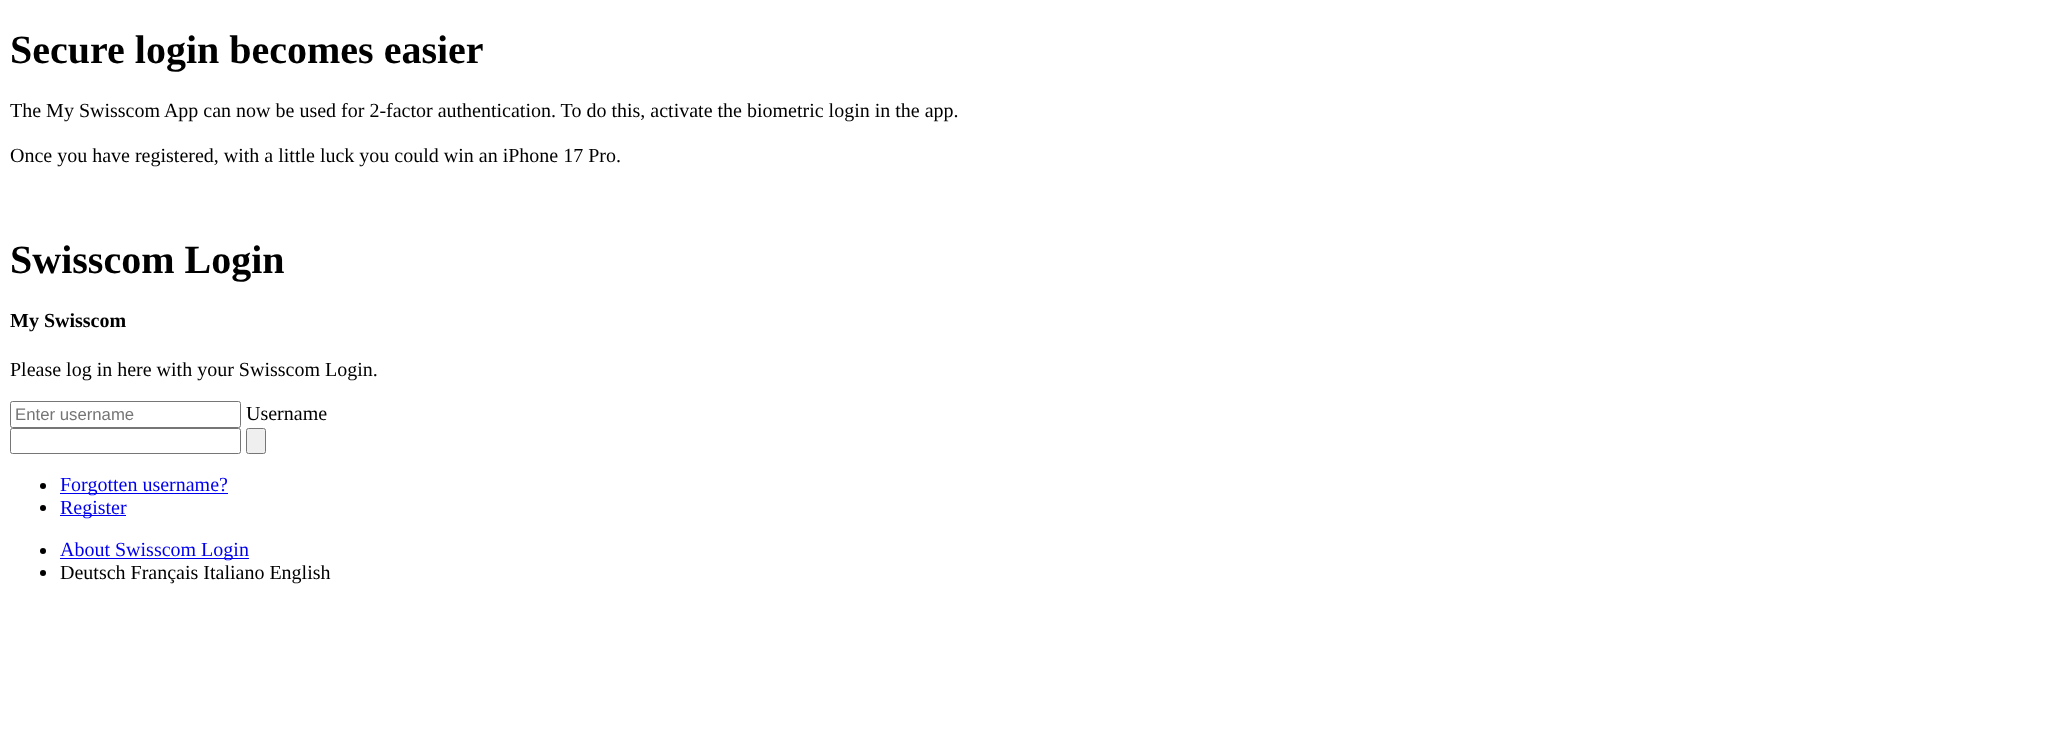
<svg xmlns="http://www.w3.org/2000/svg" width="2060" height="737">
<style>
.a{font:bold 40px Liberation Serif;fill:#000}
.b{font:20px Liberation Serif;fill:#000}
.c{font:bold 20px Liberation Serif;fill:#000}
.d{font:16.75px Liberation Sans;fill:#757575}
.e{font:20px Liberation Serif;fill:#00e}
</style>
<rect width="100%" height="100%" fill="#fff"/>
<rect fill="none" stroke="#767676" x="10.5" y="401.5" width="230" height="26" rx="2"/>
<rect fill="none" stroke="#767676" x="10.5" y="428.5" width="230" height="25" rx="2"/>
<rect fill="#efefef" stroke="#767676" x="246.5" y="428.5" width="19" height="25" rx="2"/>
<circle fill="#000" cx="43" cy="486" r="3"/>
<path fill="#00e" d="M60 493h168v1H60z"/>
<circle fill="#000" cx="43" cy="508" r="3"/>
<path fill="#00e" d="M60 515h66v1H60z"/>
<circle fill="#000" cx="43" cy="551" r="3"/>
<path fill="#00e" d="M60 558h189v1H60z"/>
<circle fill="#000" cx="43" cy="573" r="3"/>
<text class="a" x="10" y="63">Secure login becomes easier</text>
<text class="b" x="10" y="117">The My Swisscom App can now be used for 2-factor authentication. To do this, activate the biometric login in the app.</text>
<text class="b" x="10" y="162">Once you have registered, with a little luck you could win an iPhone 17 Pro.</text>
<text class="a" x="10" y="273">Swisscom Login</text>
<text class="c" x="10" y="327">My Swisscom</text>
<text class="b" x="10" y="376">Please log in here with your Swisscom Login.</text>
<text class="d" x="15" y="420">Enter username</text>
<text class="b" x="246" y="420">Username</text>
<text class="e" x="60" y="491">Forgotten username?</text>
<text class="e" x="60" y="514">Register</text>
<text class="e" x="60" y="556">About Swisscom Login</text>
<text class="b" x="60" y="579">Deutsch Français Italiano English</text>
</svg>
